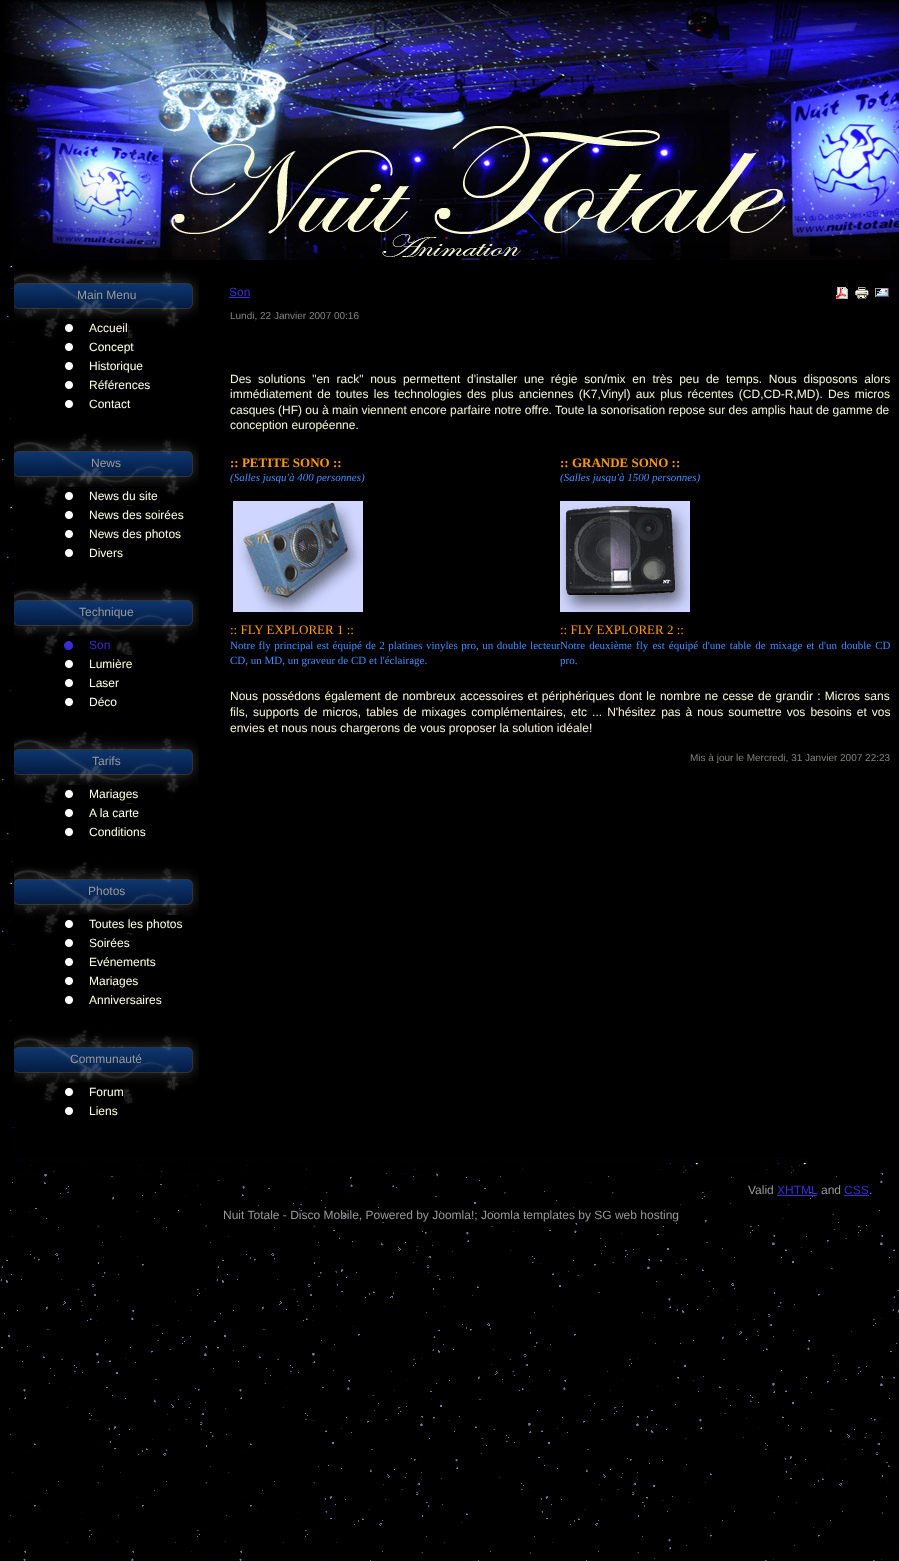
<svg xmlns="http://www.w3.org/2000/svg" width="899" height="1561">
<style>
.a{font:12px Liberation Sans;fill:#999}
.b{font:12px Liberation Sans;fill:#ffffde}
.c{font:12px Liberation Sans;fill:#392dd5}
.d{font:10px Liberation Sans;fill:#83837e}
.e{font:12px Liberation Sans;fill:#f5f5d1}
.f{font:bold 13px Liberation Serif;fill:#f90}
.g{font:italic 11px Liberation Serif;fill:#3f8dff}
.h{font:13px Liberation Serif;fill:#f90}
.i{font:11px Liberation Serif;fill:#3f8dff}
</style>
<rect width="100%" height="100%" fill="#fff"/>
<image href="1.png" x="0" y="1173" width="899" height="388"/>
<image href="2.png" x="0" y="0" width="899" height="260"/>
<image href="3.png" x="0" y="260" width="899" height="913"/>
<image href="4.png" x="14" y="260" width="185" height="83"/>
<path fill="#000" d="M64 319h64v18H64z"/>
<image href="5.png" x="65" y="324" width="8" height="8"/>
<image href="5.png" x="65" y="343" width="8" height="8"/>
<path fill="#000" d="M123 338h11v3H123z"/>
<image href="5.png" x="65" y="362" width="8" height="8"/>
<image href="5.png" x="65" y="381" width="8" height="8"/>
<image href="5.png" x="65" y="400" width="8" height="8"/>
<image href="6.png" x="14" y="433" width="185" height="78"/>
<path fill="#000" d="M64 487h94v18H64z"/>
<image href="5.png" x="65" y="492" width="8" height="8"/>
<image href="5.png" x="65" y="511" width="8" height="8"/>
<path fill="#000" d="M123 506h11v3H123z"/>
<image href="5.png" x="65" y="530" width="8" height="8"/>
<image href="5.png" x="65" y="549" width="8" height="8"/>
<image href="7.png" x="14" y="580" width="185" height="77"/>
<path fill="#000" d="M64 636h46v12H64z"/>
<image href="8.png" x="64" y="641" width="9" height="9"/>
<image href="5.png" x="65" y="660" width="8" height="8"/>
<path fill="#000" d="M123 655h9v2H123z"/>
<image href="5.png" x="65" y="679" width="8" height="8"/>
<image href="5.png" x="65" y="698" width="8" height="8"/>
<image href="9.png" x="14" y="731" width="185" height="75"/>
<path fill="#000" d="M64 785h74v18H64z"/>
<image href="5.png" x="65" y="790" width="8" height="8"/>
<image href="5.png" x="65" y="809" width="8" height="8"/>
<path fill="#000" d="M123 804h11v2H123z"/>
<image href="5.png" x="65" y="828" width="8" height="8"/>
<image href="10.png" x="14" y="860" width="185" height="76"/>
<path fill="#000" d="M64 915h118v18H64z"/>
<image href="5.png" x="65" y="920" width="8" height="8"/>
<image href="5.png" x="65" y="939" width="8" height="8"/>
<path fill="#000" d="M123 934h7v2H123z"/>
<image href="5.png" x="65" y="958" width="8" height="8"/>
<image href="5.png" x="65" y="977" width="8" height="8"/>
<image href="5.png" x="65" y="996" width="8" height="8"/>
<image href="7.png" x="14" y="1027" width="185" height="77"/>
<path fill="#000" d="M64 1083h60v18H64z"/>
<image href="5.png" x="65" y="1088" width="8" height="8"/>
<image href="5.png" x="65" y="1107" width="8" height="8"/>
<path fill="#392dd5" d="M229 297h21v1H229z"/>
<image href="11.png" x="836" y="287" width="12" height="12"/>
<image href="12.png" x="855" y="287" width="14" height="12"/>
<image href="13.png" x="875" y="288" width="14" height="9"/>
<image href="14.png" x="233" y="501" width="130" height="111"/>
<image href="15.png" x="560" y="501" width="130" height="111"/>
<image href="16.png" x="1" y="1149" width="807" height="24"/>
<path fill="#392dd5" d="M777 1195h40v1H777z"/>
<path fill="#392dd5" d="M844 1195h25v1H844z"/>
<text class="a" x="77" y="299">Main Menu</text>
<text class="b" x="89" y="332">Accueil</text>
<text class="b" x="89" y="351">Concept</text>
<text class="b" x="89" y="370">Historique</text>
<text class="b" x="89" y="389">Références</text>
<text class="b" x="89" y="408">Contact</text>
<text class="a" x="91" y="467">News</text>
<text class="b" x="89" y="500">News du site</text>
<text class="b" x="89" y="519">News des soirées</text>
<text class="b" x="89" y="538">News des photos</text>
<text class="b" x="89" y="557">Divers</text>
<text class="a" x="79" y="616">Technique</text>
<text class="c" x="89" y="649">Son</text>
<text class="b" x="89" y="668">Lumière</text>
<text class="b" x="89" y="687">Laser</text>
<text class="b" x="89" y="706">Déco</text>
<text class="a" x="92" y="765">Tarifs</text>
<text class="b" x="89" y="798">Mariages</text>
<text class="b" x="89" y="817">A la carte</text>
<text class="b" x="89" y="836">Conditions</text>
<text class="a" x="88" y="895">Photos</text>
<text class="b" x="89" y="928">Toutes les photos</text>
<text class="b" x="89" y="947">Soirées</text>
<text class="b" x="89" y="966">Evénements</text>
<text class="b" x="89" y="985">Mariages</text>
<text class="b" x="89" y="1004">Anniversaires</text>
<text class="a" x="70" y="1063">Communauté</text>
<text class="b" x="89" y="1096">Forum</text>
<text class="b" x="89" y="1115">Liens</text>
<text class="c" x="229" y="296">Son</text>
<text class="d" x="230" y="319">Lundi, 22 Janvier 2007 00:16</text>
<text class="e" x="230" y="383" word-spacing="3.4">Des solutions "en rack" nous permettent d'installer une régie son/mix en très peu de temps. Nous disposons alors</text>
<text class="e" x="230" y="398" word-spacing="1.9">immédiatement de toutes les technologies des plus anciennes (K7,Vinyl) aux plus récentes (CD,CD-R,MD). Des micros</text>
<text class="e" x="230" y="414">casques (HF) ou à main viennent encore parfaire notre offre. Toute la sonorisation repose sur des amplis haut de gamme de</text>
<text class="e" x="230" y="429">conception européenne.</text>
<text class="f" x="230" y="467">:: PETITE SONO ::</text>
<text class="g" x="230" y="481">(Salles jusqu'à 400 personnes)</text>
<text class="f" x="560" y="467">:: GRANDE SONO ::</text>
<text class="g" x="560" y="481">(Salles jusqu'à 1500 personnes)</text>
<text class="h" x="230" y="634">:: FLY EXPLORER 1 ::</text>
<text class="i" x="230" y="649" word-spacing="0.75">Notre fly principal est équipé de 2 platines vinyles pro, un double lecteur</text>
<text class="i" x="230" y="664">CD, un MD, un graveur de CD et l'éclairage.</text>
<text class="h" x="560" y="634">:: FLY EXPLORER 2 ::</text>
<text class="i" x="560" y="649" word-spacing="1.4">Notre deuxième fly est équipé d'une table de mixage et d'un double CD</text>
<text class="i" x="560" y="664">pro.</text>
<text class="e" x="230" y="700" word-spacing="0.9">Nous possédons également de nombreux accessoires et périphériques dont le nombre ne cesse de grandir : Micros sans</text>
<text class="e" x="230" y="716" word-spacing="1.7">fils, supports de micros, tables de mixages complémentaires, etc ... N'hésitez pas à nous soumettre vos besoins et vos</text>
<text class="e" x="230" y="732">envies et nous nous chargerons de vous proposer la solution idéale!</text>
<text class="d" x="690" y="761">Mis à jour le Mercredi, 31 Janvier 2007 22:23</text>
<text class="a" x="748" y="1194">Valid</text>
<text class="c" x="777" y="1194">XHTML</text>
<text class="a" x="821" y="1194">and</text>
<text class="c" x="844" y="1194">CSS</text>
<text class="a" x="869" y="1194">.</text>
<text class="a" x="223" y="1219">Nuit Totale - Disco Mobile, Powered by Joomla!; Joomla templates by SG web hosting</text>
</svg>
